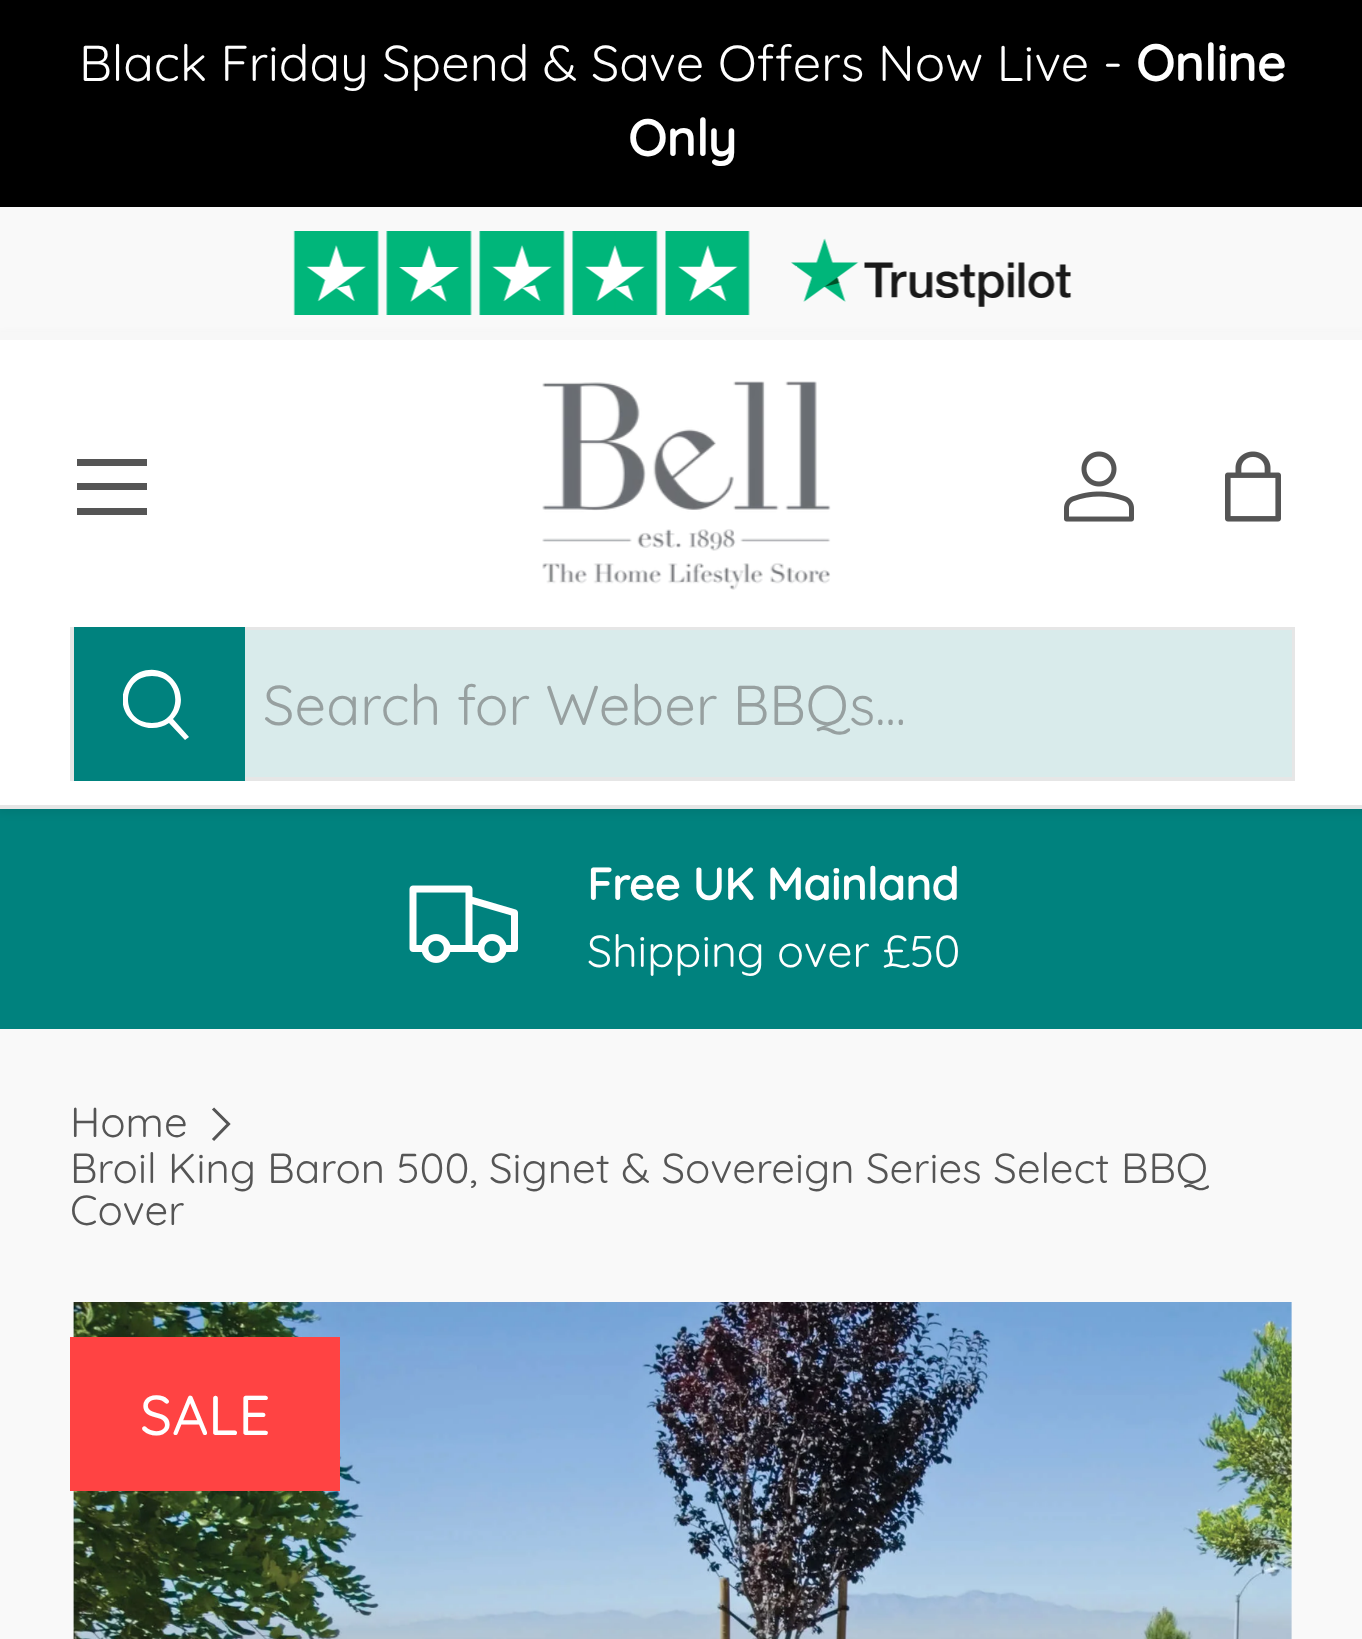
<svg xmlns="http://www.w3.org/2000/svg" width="1362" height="1639">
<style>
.a{font:50.4px Quicksand;fill:#fff}
.b{font:bold 50.4px Quicksand;fill:#fff}
.c{font:56px Quicksand;fill:#97a0a0}
.d{font:bold 44.75px Quicksand;fill:#fff}
.e{font:44.75px Quicksand;fill:#fff}
.f{font:42px Quicksand;fill:#555}
.g{font:500 56px Quicksand;fill:#fff}
</style>
<defs>
<clipPath id="clip1"><path d="M123 669h73v80H123z"/></clipPath>
</defs>
<rect width="100%" height="100%" fill="#f9f9f9"/>
<path fill="#000" d="M0 0h1362v207H0z"/>
<path fill="#00827e" d="M0 809h1362v220H0z"/>
<path fill="#00000014" filter="blur(5px)" d="M-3 336h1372v476H-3z"/>
<path fill="#f7f7f7" d="M0 332h1362v8H0z"/>
<image href="1.png" x="293" y="231" width="779" height="84"/>
<path fill="#fff" d="M0 340h1362v465H0z"/>
<path fill="#555" d="M77 459h70v7H77z"/>
<path fill="#555" d="M77 508h70v7H77z"/>
<path fill="#555" d="M77 483h70v7H77z"/>
<image href="2.png" x="542" y="381" width="289" height="209"/>
<image href="3.png" x="1064" y="451" width="70" height="71"/>
<image href="4.png" x="1225" y="451" width="56" height="71"/>
<path fill="none" stroke="#e6e6e6" stroke-width="4" d="M72 629h1221v150H72z"/>
<path fill="#00827e" d="M74 627h171v154H74z"/>
<g clip-path="url(#clip1)">
<path fill="#fff" d="M173 719l16 18l-4 3l-16-17c-13 9-32 6-42-8c-5-8-6-18-2-27c3-7 8-13 15-16c30-12 54 25 33 47zm-21 4c31 0 31-47 0-47c-32 0-32 47 0 47z"/>
</g>
<path fill="#d9ebeb" d="M245 630h1047v147H245z"/>
<path fill="#e6e6e6" d="M0 805h1362v4H0z"/>
<image href="5.png" x="409" y="885" width="109" height="78"/>
<path fill="none" stroke="#555" stroke-width="3.1" d="M213 1108.5l15.5 15.5l-15.5 16"/>
<image href="6.png" x="73" y="1302" width="1219" height="337"/>
<path fill="#ff4343" d="M70 1337h270v154H70z"/>
<text class="a" x="79" y="81">Black Friday Spend &amp; Save Offers Now Live -</text>
<text class="b" x="1136" y="81">Online</text>
<text class="b" x="628" y="156">Only</text>
<text class="c" x="263" y="725">Search for Weber BBQs...</text>
<text class="d" x="587" y="900">Free UK Mainland</text>
<text class="e" x="587" y="967">Shipping over £50</text>
<text class="f" x="70" y="1137">Home</text>
<text class="f" x="70" y="1183">Broil King Baron 500, Signet &amp; Sovereign Series Select BBQ</text>
<text class="f" x="70" y="1225">Cover</text>
<text class="g" x="140" y="1435">SALE</text>
</svg>
